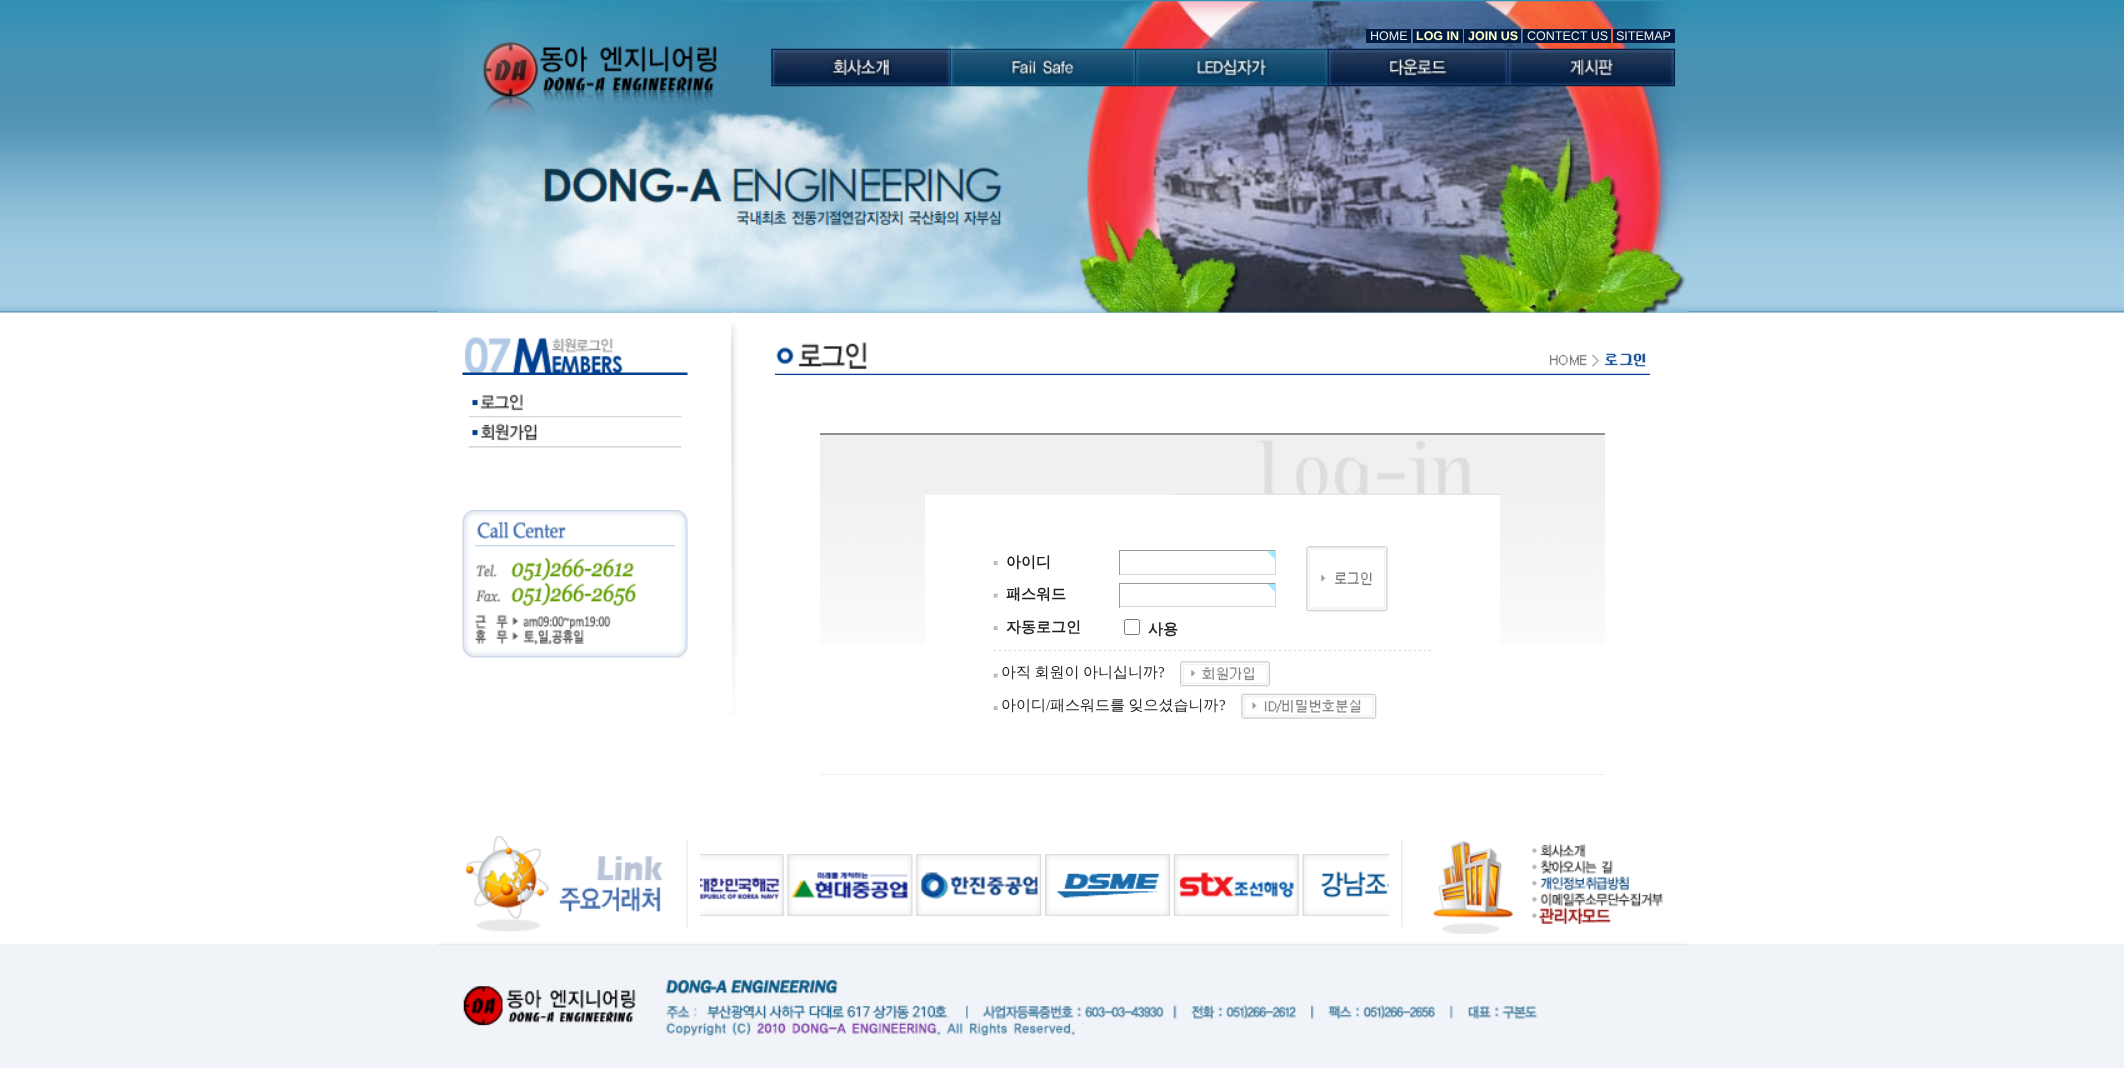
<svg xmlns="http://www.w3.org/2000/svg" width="2124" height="1068">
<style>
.a{font:12.5px Liberation Sans;fill:#efefef}
.b{font:bold 12.5px Liberation Sans;fill:#ffc}
.c{font:bold 15px WenQuanYi Zen Hei;fill:#222}
.d{font:500 15px WenQuanYi Zen Hei;fill:#222}
.e{font:15px Liberation Serif;fill:#222}
</style>
<rect width="100%" height="100%" fill="#fff"/>
<image href="1.png" x="0" y="0" width="2124" height="313"/>
<image href="14.png" x="731" y="312" width="7" height="403"/>
<image href="2.png" x="437" y="1" width="1251" height="312"/>
<path fill="#001a40" d="M1366 29h45v14H1366z"/>
<path fill="#658fb1" d="M1411 29h1v14H1411z"/>
<path fill="#001a40" d="M1413 29h50v14H1413z"/>
<path fill="#658fb1" d="M1463 29h1v14H1463z"/>
<path fill="#001a40" d="M1464 29h57v14H1464z"/>
<path fill="#658fb1" d="M1521 29h1v14H1521z"/>
<path fill="#001a40" d="M1523 29h88v14H1523z"/>
<path fill="#658fb1" d="M1611 29h1v14H1611z"/>
<path fill="#001a40" d="M1613 29h62v14H1613z"/>
<image href="3.png" x="483" y="42" width="234" height="74"/>
<image href="4.png" x="771" y="48" width="181" height="39"/>
<image href="5.png" x="951" y="48" width="184" height="39"/>
<image href="6.png" x="1135" y="48" width="193" height="39"/>
<image href="7.png" x="1327" y="48" width="182" height="39"/>
<image href="8.png" x="1508" y="48" width="167" height="39"/>
<image href="9.png" x="462" y="337" width="226" height="38"/>
<image href="10.png" x="472" y="393" width="51" height="18"/>
<image href="11.png" x="468" y="416" width="214" height="2"/>
<image href="12.png" x="468" y="417" width="214" height="24"/>
<image href="11.png" x="468" y="446" width="214" height="2"/>
<image href="13.png" x="462" y="510" width="226" height="148"/>
<image href="15.png" x="775" y="342" width="875" height="33"/>
<path fill="#8f8f8f" d="M820 433h785v2H820z"/>
<path fill="#f0f0f0" d="M820 435h785v60H820z"/>
<image href="16.png" x="1175" y="440" width="328" height="55"/>
<image href="17.png" x="820" y="495" width="785" height="150"/>
<path fill="#fff" d="M925 495h575v150H925z"/>
<image href="18.png" x="993" y="561" width="5" height="4"/>
<image href="19.png" x="1267" y="551" width="8" height="8"/>
<path fill="#9a9a9a" d="M1119 550h157v1H1119z"/>
<path fill="#d8d8d8" d="M1275 550h1v25H1275z"/>
<path fill="#d8d8d8" d="M1119 574h157v1H1119z"/>
<path fill="#9a9a9a" d="M1119 550h1v25H1119z"/>
<image href="20.png" x="993" y="593" width="5" height="5"/>
<image href="21.png" x="1267" y="584" width="8" height="8"/>
<path fill="#9a9a9a" d="M1119 583h157v1H1119z"/>
<path fill="#d8d8d8" d="M1275 583h1v25H1275z"/>
<path fill="#d8d8d8" d="M1119 606h157v1H1119z"/>
<path fill="#9a9a9a" d="M1119 583h1v25H1119z"/>
<image href="18.png" x="993" y="626" width="5" height="4"/>
<rect fill="none" stroke="#767676" x="1124.5" y="619.5" width="15" height="15" rx="2"/>
<image href="22.png" x="1306" y="546" width="82" height="66"/>
<image href="23.png" x="994" y="650" width="437" height="2"/>
<image href="20.png" x="993" y="673" width="5" height="5"/>
<image href="24.png" x="1180" y="661" width="90" height="26"/>
<image href="18.png" x="993" y="706" width="5" height="4"/>
<image href="25.png" x="1241" y="693" width="136" height="26"/>
<path fill="#f0f0f0" d="M820 774h785v1H820z"/>
<image href="26.png" x="466" y="836" width="197" height="96"/>
<image href="27.png" x="686" y="840" width="2" height="88"/>
<image href="28.png" x="700" y="854" width="84" height="62"/>
<image href="29.png" x="787" y="854" width="126" height="62"/>
<image href="30.png" x="916" y="854" width="126" height="62"/>
<image href="31.png" x="1045" y="854" width="125" height="62"/>
<image href="32.png" x="1173" y="854" width="126" height="62"/>
<image href="33.png" x="1302" y="854" width="87" height="62"/>
<image href="27.png" x="1401" y="840" width="2" height="88"/>
<image href="34.png" x="1433" y="841" width="230" height="93"/>
<path fill="#f0f3f8" d="M0 944h2124v124H0z"/>
<image href="35.png" x="437" y="943" width="1251" height="94"/>
<text class="a" x="1370" y="40">HOME</text>
<text class="b" x="1416" y="40">LOG IN</text>
<text class="b" x="1468" y="40">JOIN US</text>
<text class="a" x="1527" y="40">CONTECT US</text>
<text class="a" x="1616" y="40">SITEMAP</text>
<text class="c" x="1006" y="567">아이디</text>
<text class="c" x="1006" y="599">패스워드</text>
<text class="c" x="1006" y="632">자동로그인</text>
<text class="c" x="1148" y="634">사용</text>
<text class="d" x="1001" y="677" word-spacing="-1">아직 회원이 아니십니까</text>
<text class="e" x="1158" y="677">?</text>
<text class="d" x="1001" y="710">아이디</text>
<text class="e" x="1046" y="710">/</text>
<text class="d" x="1050" y="710" word-spacing="-1">패스워드를 잊으셨습니까</text>
<text class="e" x="1219" y="710">?</text>
</svg>
